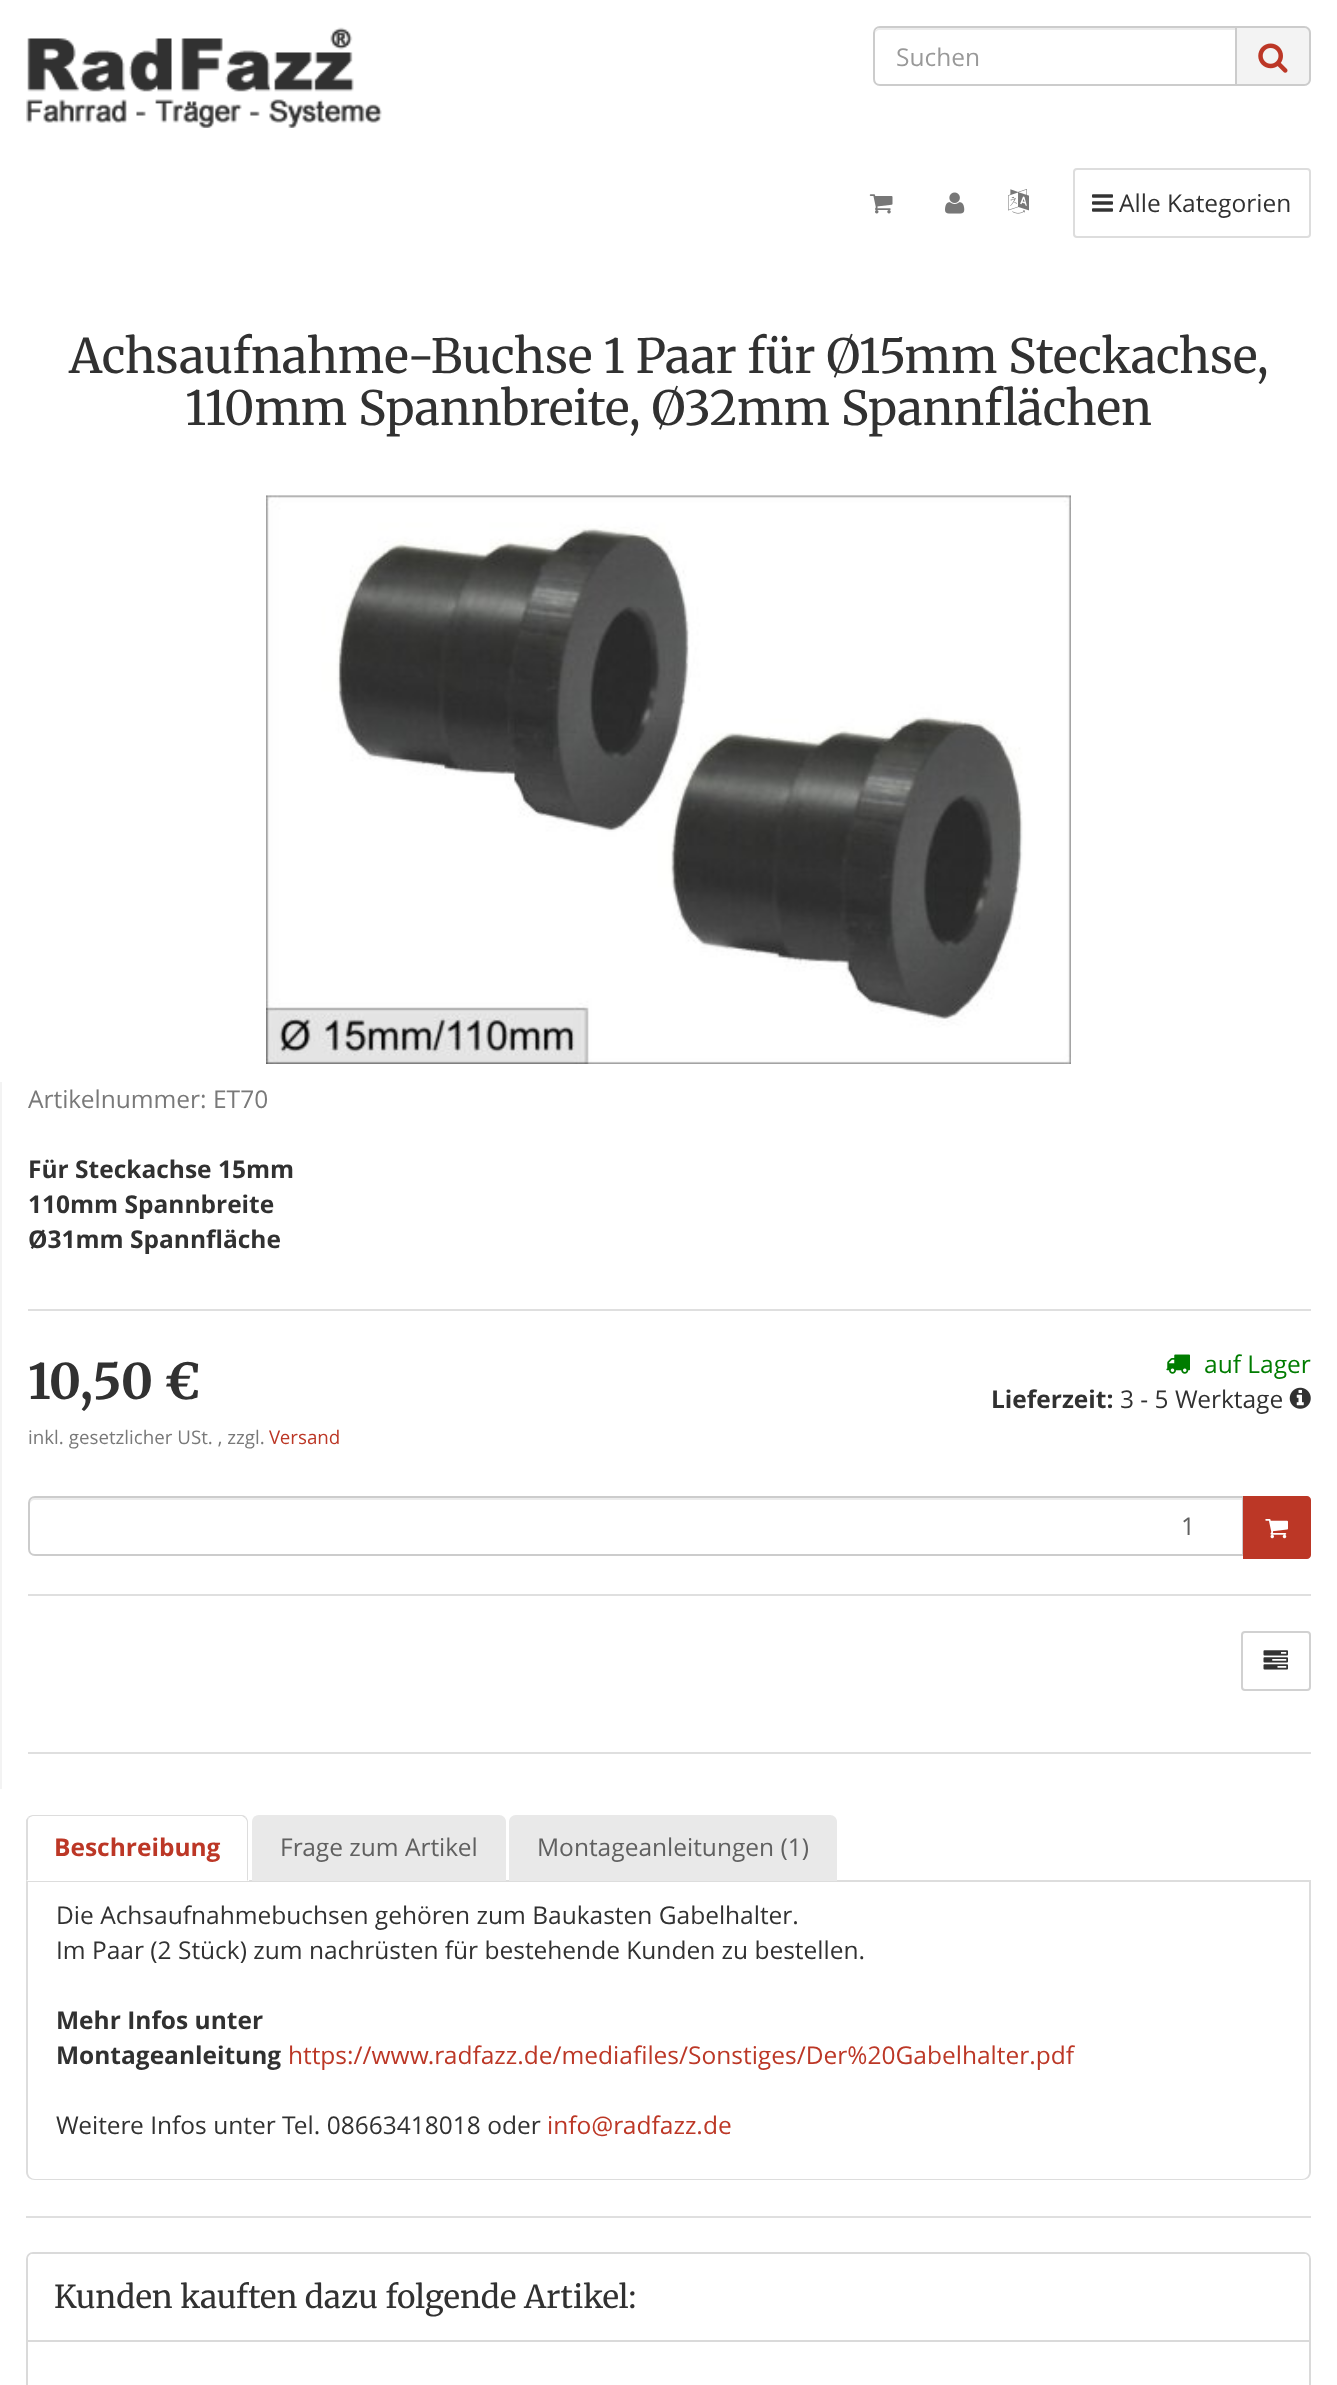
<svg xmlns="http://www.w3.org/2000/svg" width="1337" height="2385">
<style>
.a{font:24.5px Open Sans;fill:#999}
.b{font:24.5px Open Sans;fill:#313131}
.c{font:47.25px Merriweather;fill:#313131}
.d{font:24.5px Open Sans;fill:#797979}
.e{font:bold 24.5px Open Sans;fill:#313131}
.f{font:bold 49px Merriweather;fill:#313131}
.g{font:18.75px Open Sans;fill:#797979}
.h{font:18.75px Open Sans;fill:#bc3726}
.i{font:24.5px Open Sans;fill:#007c00}
.j{font:24.5px Open Sans;fill:#606060}
.k{font:bold 24.5px Open Sans;fill:#bc3726}
.l{font:24.5px Open Sans;fill:#bc3726}
.m{font:31.5px 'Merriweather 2';fill:#313131}
</style>
<rect width="100%" height="100%" fill="#fff"/>
<image href="1.png" x="26" y="27" width="356" height="101"/>
<path fill="#ececec" d="M880 30h356v-2h-356c-4 0-5 4-5 7c0-3 2-5 5-5z"/>
<path fill="none" stroke="#ccc" stroke-width="2" d="M880 27h356v58h-356c-3.5 0-6-2.5-6-6v-46c0-3.5 2.5-6 6-6z"/>
<path fill="#f3f3f3" d="M1237 26h67c4 0 7 3 7 7v46c0 4-3 7-7 7h-67z"/>
<path fill="#ccc" fill-rule="evenodd" d="M1237 26h67c4 0 7 3 7 7v46c0 4-3 7-7 7h-67zm0 2h67c3 0 5 2 5 5v46c0 3-2 5-5 5h-67z"/>
<image href="2.png" x="1258" y="43" width="30" height="30"/>
<image href="3.png" x="869" y="194" width="24" height="20"/>
<image href="4.png" x="945" y="192" width="20" height="22"/>
<image href="5.png" x="1008" y="189" width="21" height="25"/>
<rect fill="none" stroke="#ddd" stroke-width="2" x="1074" y="169" width="236" height="68" rx="3"/>
<image href="6.png" x="1092" y="194" width="21" height="18"/>
<image href="7.png" x="266" y="495" width="805" height="569"/>
<path fill="#f3f3f3" d="M0 1082h2v707H0z"/>
<path fill="#dfdfdf" d="M28 1309h1283v2H28z"/>
<image href="8.png" x="1166" y="1354" width="24" height="20"/>
<image href="9.png" x="1289" y="1387" width="22" height="22"/>
<path fill="#ececec" d="M35 1500h1207v54h1v-56h-1208c-3 0-5 2-5 5v2c0-3 2-5 5-5z"/>
<path fill="none" stroke="#ccc" stroke-width="2" d="M35 1497h1208v58h-1208c-3.5 0-6-2.5-6-6v-46c0-3.5 2.5-6 6-6z"/>
<path fill="#bc3726" stroke="#bc3726" stroke-width="2" d="M1244 1497h63c1.5 0 3 1.5 3 3v55c0 1.5-1.5 3-3 3h-63z"/>
<image href="10.png" x="1265" y="1519" width="23" height="20"/>
<path fill="#dfdfdf" d="M28 1594h1283v2H28z"/>
<rect fill="none" stroke="#d1d1d1" stroke-width="2" x="1242" y="1632" width="68" height="58" rx="3"/>
<image href="11.png" x="1263" y="1650" width="25" height="20"/>
<path fill="#dfdfdf" d="M28 1752h1283v2H28z"/>
<path fill="#ddd" fill-rule="evenodd" d="M26 1881h1285v291c0 5-4 8-9 8h-1267c-5 0-9-3-9-8zm2 0h1281v291c0 4-3 7-7 7h-1267c-4 0-7-3-7-7z"/>
<path fill="#ddd" d="M26 1880h1285v2H26z"/>
<path fill="#fff" d="M33 1815h209c4 0 7 3 7 7v59h-223v-59c0-4 3-7 7-7z"/>
<path fill="#ddd" d="M33 1815c-2 0-4 1-5 2l1 1c1-1 3-2 4-2h209l3 2l1-1c-1-1-2-2-4-2z"/>
<path fill="#ddd" d="M248 1881v-59c0-2-1-4-2-5l-1 1c1 1 2 3 2 4v58z"/>
<path fill="#ddd" d="M26 1820l2-3l1 1c-1 1-1 2-1 4v58l-2 1z"/>
<path fill="#e9e9e9" d="M259 1815h240c4 0 7 3 7 7v59h-254v-59c0-4 3-7 7-7z"/>
<path fill="#e9e9e9" d="M516 1815h314c4 0 7 3 7 7v59h-328v-59c0-4 3-7 7-7z"/>
<path fill="#dfdfdf" d="M26 2216h1285v2H26z"/>
<rect fill="none" stroke="#dadada" stroke-width="2" x="27" y="2253" width="1283" height="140" rx="6"/>
<path fill="#fff" d="M33 2254h1271c3 0 5 2 5 5v83h-1281v-83c0-3 2-5 5-5z"/>
<path fill="#dadada" d="M28 2340h1281v2H28z"/>
<text class="a" x="896" y="66">Suchen</text>
<text class="b" x="1119" y="212">Alle Kategorien</text>
<text class="c" x="69" y="373">Achsaufnahme-Buchse 1 Paar für Ø15mm Steckachse,</text>
<text class="c" x="185" y="425">110mm Spannbreite, Ø32mm Spannflächen</text>
<text class="d" x="28" y="1108">Artikelnummer: ET70</text>
<text class="e" x="28" y="1178">Für Steckachse 15mm</text>
<text class="e" x="28" y="1213">110mm Spannbreite</text>
<text class="e" x="28" y="1248">Ø31mm Spannfläche</text>
<text class="f" x="28" y="1399" word-spacing="-1">10,50 €</text>
<text class="g" x="28" y="1444">inkl. gesetzlicher USt. , zzgl.</text>
<text class="h" x="269" y="1444">Versand</text>
<text class="i" x="1204" y="1373">auf Lager</text>
<text class="e" x="991" y="1408">Lieferzeit:</text>
<text class="b" x="1120" y="1408">3 - 5 Werktage</text>
<text class="j" x="1181" y="1535">1</text>
<text class="k" x="54" y="1856">Beschreibung</text>
<text class="j" x="280" y="1856">Frage zum Artikel</text>
<text class="j" x="537" y="1856">Montageanleitungen (1)</text>
<text class="b" x="56" y="1924">Die Achsaufnahmebuchsen gehören zum Baukasten Gabelhalter.</text>
<text class="b" x="56" y="1959">Im Paar (2 Stück) zum nachrüsten für bestehende Kunden zu bestellen.</text>
<text class="e" x="56" y="2029">Mehr Infos unter</text>
<text class="e" x="56" y="2064">Montageanleitung</text>
<text class="l" x="288" y="2064">https://www.radfazz.de/mediafiles/Sonstiges/Der%20Gabelhalter.pdf</text>
<text class="b" x="56" y="2134">Weitere Infos unter Tel. 08663418018 oder</text>
<text class="l" x="547" y="2134">info@radfazz.de</text>
<text class="m" x="54" y="2308">Kunden kauften dazu folgende Artikel:</text>
</svg>
